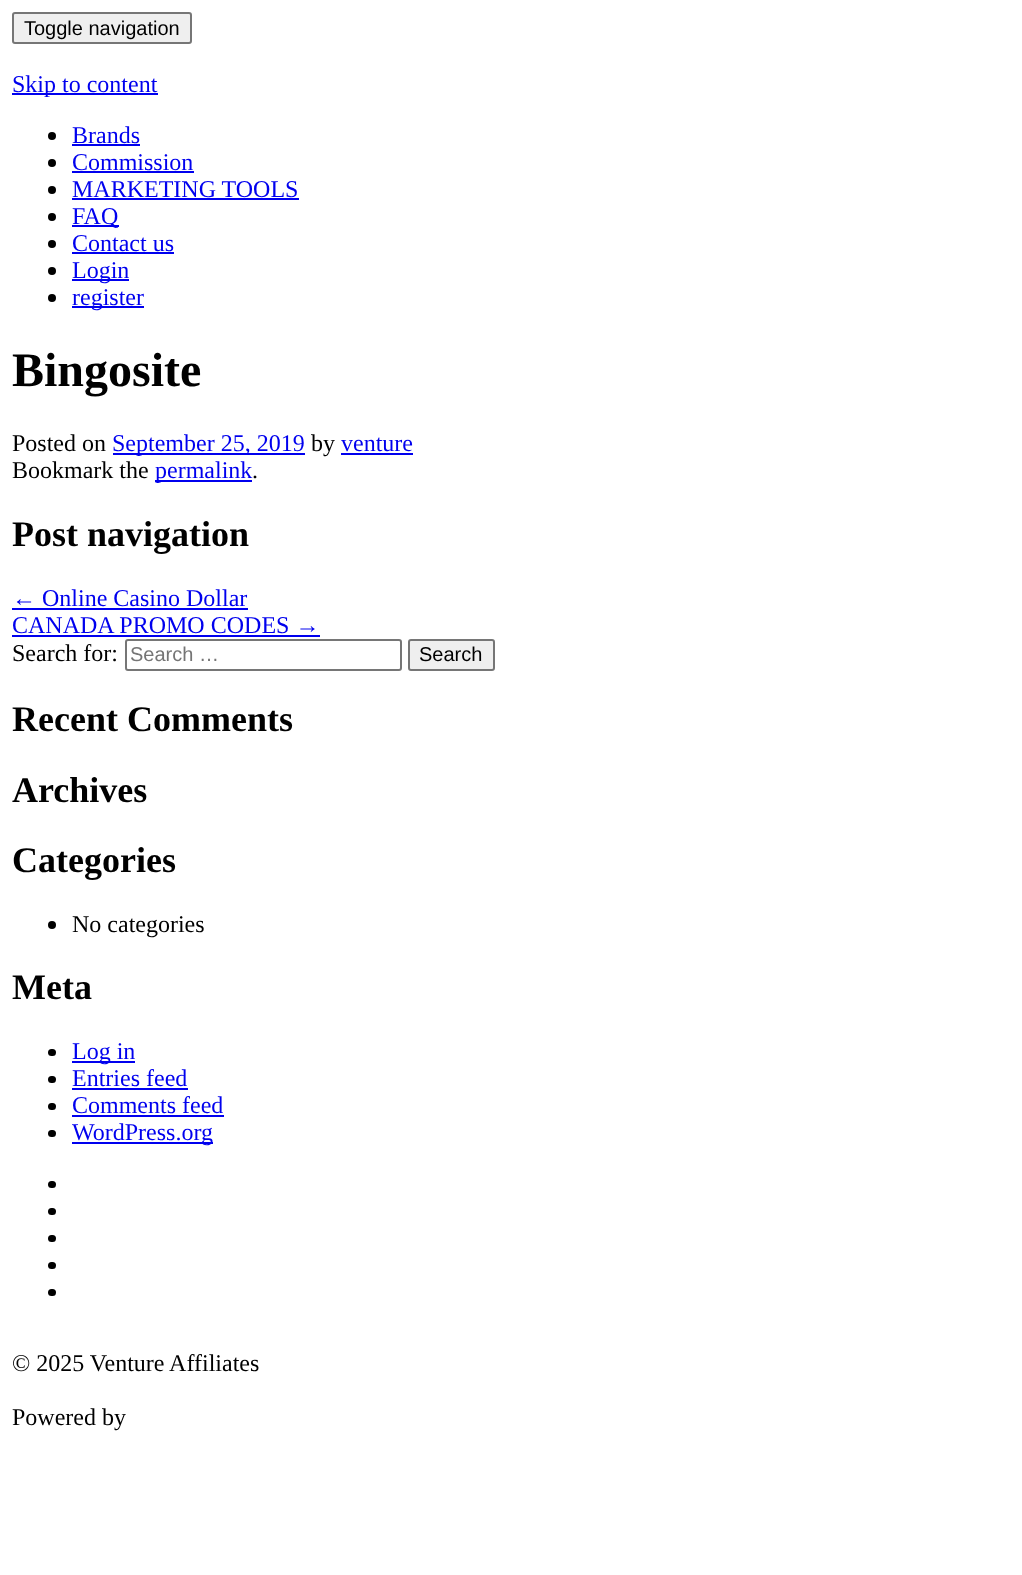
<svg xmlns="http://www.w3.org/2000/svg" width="1022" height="1575">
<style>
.a{font:20px Liberation Sans;fill:#000}
.b{font:24px Liberation Serif;fill:#00e}
.c{font:bold 48px Liberation Serif;fill:#000}
.d{font:24px Liberation Serif;fill:#000}
.e{font:bold 36px Liberation Serif;fill:#000}
.f{font:20px Liberation Sans;fill:#757575}
</style>
<rect width="100%" height="100%" fill="#fff"/>
<rect fill="#efefef" stroke="#767676" stroke-width="2" x="13" y="13" width="178" height="30" rx="2"/>
<path fill="#00e" d="M12 93h146v2H12z"/>
<circle fill="#000" cx="52" cy="136" r="4"/>
<path fill="#00e" d="M72 144h68v2H72z"/>
<circle fill="#000" cx="52" cy="163" r="4"/>
<path fill="#00e" d="M72 171h122v2H72z"/>
<circle fill="#000" cx="52" cy="190" r="4"/>
<path fill="#00e" d="M72 198h227v2H72z"/>
<circle fill="#000" cx="52" cy="217" r="4"/>
<path fill="#00e" d="M72 225h47v2H72z"/>
<circle fill="#000" cx="52" cy="244" r="4"/>
<path fill="#00e" d="M72 252h102v2H72z"/>
<circle fill="#000" cx="52" cy="271" r="4"/>
<path fill="#00e" d="M72 279h57v2H72z"/>
<circle fill="#000" cx="52" cy="298" r="4"/>
<path fill="#00e" d="M72 306h72v2H72z"/>
<path fill="#00e" d="M113 453h192v2H113z"/>
<path fill="#00e" d="M341 453h72v2H341z"/>
<path fill="#00e" d="M155 480h97v2H155z"/>
<path fill="#00e" d="M12 608h236v2H12z"/>
<path fill="#00e" d="M12 635h308v2H12z"/>
<rect fill="none" stroke="#767676" stroke-width="2" x="126" y="640" width="275" height="30" rx="2"/>
<rect fill="#efefef" stroke="#767676" stroke-width="2" x="409" y="640" width="85" height="30" rx="2"/>
<circle fill="#000" cx="52" cy="925" r="4"/>
<rect fill="#000" x="48" y="1049" width="8" height="7" rx="3.5"/>
<path fill="#00e" d="M72 1061h63v2H72z"/>
<rect fill="#000" x="48" y="1076" width="8" height="7" rx="3.5"/>
<path fill="#00e" d="M72 1088h116v2H72z"/>
<rect fill="#000" x="48" y="1103" width="8" height="7" rx="3.5"/>
<path fill="#00e" d="M72 1115h152v2H72z"/>
<rect fill="#000" x="48" y="1130" width="8" height="7" rx="3.5"/>
<path fill="#00e" d="M72 1142h141v2H72z"/>
<rect fill="#000" x="48" y="1181" width="8" height="7" rx="3.5"/>
<rect fill="#000" x="48" y="1208" width="8" height="7" rx="3.5"/>
<rect fill="#000" x="48" y="1235" width="8" height="7" rx="3.5"/>
<rect fill="#000" x="48" y="1262" width="8" height="7" rx="3.5"/>
<rect fill="#000" x="48" y="1289" width="8" height="7" rx="3.5"/>
<text class="a" x="24" y="35">Toggle navigation</text>
<text class="b" x="12" y="92">Skip to content</text>
<text class="b" x="72" y="143">Brands</text>
<text class="b" x="72" y="170">Commission</text>
<text class="b" x="72" y="197">MARKETING TOOLS</text>
<text class="b" x="72" y="224">FAQ</text>
<text class="b" x="72" y="251">Contact us</text>
<text class="b" x="72" y="278">Login</text>
<text class="b" x="72" y="305">register</text>
<text class="c" x="12" y="386">Bingosite</text>
<text class="d" x="12" y="451">Posted on</text>
<text class="b" x="112" y="451">September 25, 2019</text>
<text class="d" x="311" y="451">by</text>
<text class="b" x="341" y="451">venture</text>
<text class="d" x="12" y="478">Bookmark the</text>
<text class="b" x="155" y="478">permalink</text>
<text class="d" x="252" y="478">.</text>
<text class="e" x="12" y="546">Post navigation</text>
<text class="b" x="12" y="606">← Online Casino Dollar</text>
<text class="b" x="12" y="633">CANADA PROMO CODES →</text>
<text class="d" x="12" y="661">Search for:</text>
<text class="f" x="130" y="661">Search …</text>
<text class="a" x="419" y="661">Search</text>
<text class="e" x="12" y="731">Recent Comments</text>
<text class="e" x="12" y="802">Archives</text>
<text class="e" x="12" y="872">Categories</text>
<text class="d" x="72" y="932">No categories</text>
<text class="e" x="12" y="999">Meta</text>
<text class="b" x="72" y="1059">Log in</text>
<text class="b" x="72" y="1086">Entries feed</text>
<text class="b" x="72" y="1113">Comments feed</text>
<text class="b" x="72" y="1140">WordPress.org</text>
<text class="d" x="12" y="1371">© 2025 Venture Affiliates</text>
<text class="d" x="12" y="1425">Powered by</text>
</svg>
